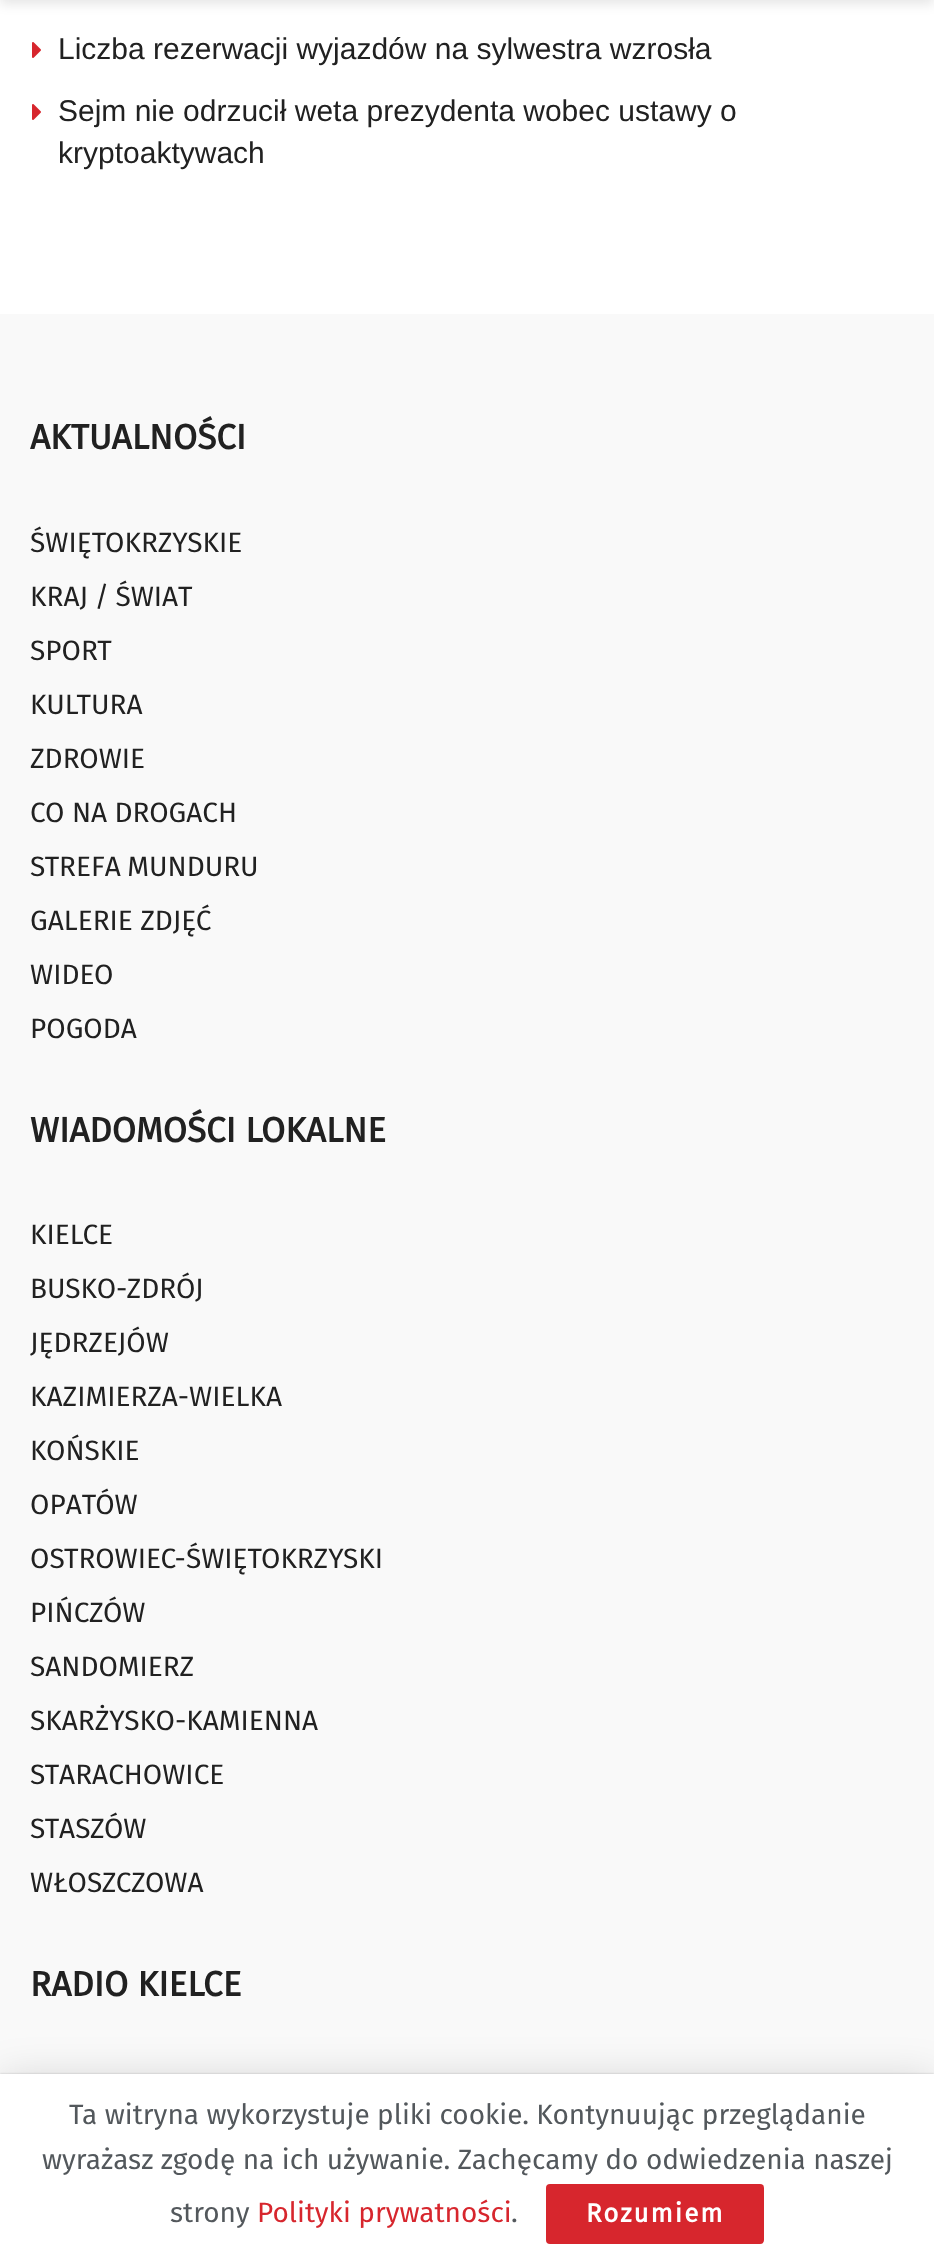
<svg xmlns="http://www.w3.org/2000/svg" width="934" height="2263">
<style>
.a{font:30px Liberation Sans;fill:#212121}
.b{font:bold 35px Fira Sans;fill:#212121}
.c{font:28px Fira Sans;fill:#212121}
.d{font:28px Fira Sans;fill:#53585c}
.e{font:28px Fira Sans;fill:#d7262d}
.f{font:bold 26px Fira Sans;letter-spacing:2px;fill:#fff}
</style>
<rect width="100%" height="100%" fill="#fff"/>
<path fill="#0000001a" filter="blur(6px)" d="M0 -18h934v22H0z"/>
<image href="1.png" x="32" y="42" width="9" height="16"/>
<image href="1.png" x="32" y="104" width="9" height="16"/>
<path fill="#f9f9f9" d="M0 314h934v1760H0z"/>
<path fill="#00000026" filter="blur(20px)" d="M0 2078h934v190H0z"/>
<path fill="#00000033" filter="blur(1px)" d="M0 2074h934v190H0z"/>
<path fill="#fff" d="M0 2074h934v189H0z"/>
<rect fill="#d7262d" x="546" y="2184" width="218" height="60" rx="4"/>
<text class="a" x="58" y="59">Liczba rezerwacji wyjazdów na sylwestra wzrosła</text>
<text class="a" x="58" y="121">Sejm nie odrzucił weta prezydenta wobec ustawy o</text>
<text class="a" x="58" y="163">kryptoaktywach</text>
<text class="b" x="30" y="449">AKTUALNOŚCI</text>
<text class="c" x="30" y="552">ŚWIĘTOKRZYSKIE</text>
<text class="c" x="30" y="606" word-spacing="-1">KRAJ / ŚWIAT</text>
<text class="c" x="30" y="660">SPORT</text>
<text class="c" x="30" y="714">KULTURA</text>
<text class="c" x="30" y="768">ZDROWIE</text>
<text class="c" x="30" y="822">CO NA DROGACH</text>
<text class="c" x="30" y="876" word-spacing="-1">STREFA MUNDURU</text>
<text class="c" x="30" y="930">GALERIE ZDJĘĆ</text>
<text class="c" x="30" y="984">WIDEO</text>
<text class="c" x="30" y="1038">POGODA</text>
<text class="b" x="30" y="1142">WIADOMOŚCI LOKALNE</text>
<text class="c" x="30" y="1244">KIELCE</text>
<text class="c" x="30" y="1298">BUSKO-ZDRÓJ</text>
<text class="c" x="30" y="1352">JĘDRZEJÓW</text>
<text class="c" x="30" y="1406">KAZIMIERZA-WIELKA</text>
<text class="c" x="30" y="1460">KOŃSKIE</text>
<text class="c" x="30" y="1514">OPATÓW</text>
<text class="c" x="30" y="1568">OSTROWIEC-ŚWIĘTOKRZYSKI</text>
<text class="c" x="30" y="1622">PIŃCZÓW</text>
<text class="c" x="30" y="1676">SANDOMIERZ</text>
<text class="c" x="30" y="1730">SKARŻYSKO-KAMIENNA</text>
<text class="c" x="30" y="1784">STARACHOWICE</text>
<text class="c" x="30" y="1838">STASZÓW</text>
<text class="c" x="30" y="1892">WŁOSZCZOWA</text>
<text class="b" x="30" y="1996">RADIO KIELCE</text>
<text class="d" x="69" y="2124">Ta witryna wykorzystuje pliki cookie. Kontynuując przeglądanie</text>
<text class="d" x="42" y="2169">wyrażasz zgodę na ich używanie. Zachęcamy do odwiedzenia naszej</text>
<text class="d" x="170" y="2222">strony</text>
<text class="e" x="257" y="2222">Polityki prywatności</text>
<text class="d" x="511" y="2222">.</text>
<text class="f" x="586" y="2222">Rozumiem</text>
</svg>
